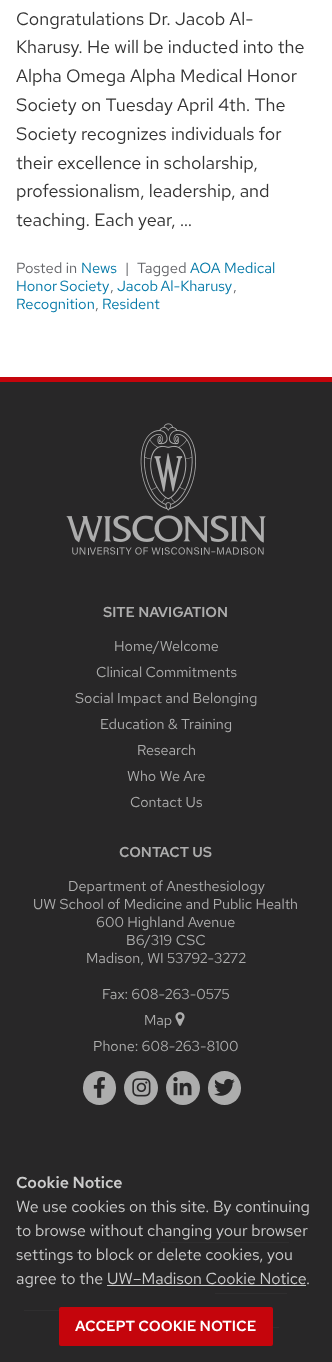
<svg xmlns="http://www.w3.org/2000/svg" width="332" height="1362">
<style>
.a{font:18px Red Hat Text;fill:#333}
.b{font:14.75px Red Hat Text;fill:#646569}
.c{font:14.75px Red Hat Text;fill:#0479a8}
.d{font:600 14.4px Red Hat Text;fill:#adadad}
.e{font:14.4px Red Hat Text;fill:#adadad}
.f{font:600 16px Red Hat Text;fill:#ccc}
.g{font:16px Red Hat Text;fill:#ccc}
.h{font:600 14.75px Red Hat Text;fill:#fff}
</style>
<rect width="100%" height="100%" fill="#fff"/>
<path fill="#282728" d="M0 382h332v980H0z"/>
<path fill="#c5050c" d="M0 377h332v5H0z"/>
<image href="1.png" x="66" y="423" width="200" height="132"/>
<image href="2.png" x="175" y="1012" width="10" height="14"/>
<rect fill="#adadad" x="83" y="1071" width="33" height="34" rx="16.5"/>
<image href="3.png" x="93" y="1077" width="12" height="21"/>
<circle fill="#adadad" cx="141" cy="1088" r="17"/>
<image href="4.png" x="132" y="1078" width="19" height="19"/>
<circle fill="#adadad" cx="183" cy="1088" r="17"/>
<image href="5.png" x="173" y="1077" width="19" height="19"/>
<rect fill="#adadad" x="208" y="1071" width="33" height="34" rx="16.5"/>
<image href="6.png" x="214" y="1079" width="21" height="17"/>
<path fill="#2f2e2f" d="M83 1209h208v1H83z"/>
<path fill="#2f2e2f" d="M161 1242h128v1H161z"/>
<path fill="#2f2e2f" d="M137 1259h54v1H137z"/>
<path fill="#2f2e2f" d="M215 1293h72v1H215z"/>
<path fill="#2f2e2f" d="M24 1310h35v1H24z"/>
<path fill="#2f2e2f" d="M273 1327h6v1H273z"/>
<path fill="#ccc" d="M107 1285h199v1H107z"/>
<rect fill="#c5050c" x="59" y="1307" width="214" height="39" rx="2"/>
<text class="a" x="16" y="25">Congratulations Dr. Jacob Al-</text>
<text class="a" x="16" y="53">Kharusy. He will be inducted into the</text>
<text class="a" x="16" y="82">Alpha Omega Alpha Medical Honor</text>
<text class="a" x="16" y="111">Society on Tuesday April 4th. The</text>
<text class="a" x="16" y="140">Society recognizes individuals for</text>
<text class="a" x="16" y="169">their excellence in scholarship,</text>
<text class="a" x="16" y="197">professionalism, leadership, and</text>
<text class="a" x="16" y="226">teaching. Each year, …</text>
<text class="b" x="16" y="273">Posted in</text>
<text class="c" x="81" y="273">News</text>
<text class="b" x="125" y="273">|</text>
<text class="b" x="137" y="273">Tagged</text>
<text class="c" x="190" y="273">AOA Medical</text>
<text class="c" x="16" y="291" word-spacing="-1">Honor Society</text>
<text class="b" x="110" y="291">,</text>
<text class="c" x="117" y="291" word-spacing="-1">Jacob Al-Kharusy</text>
<text class="b" x="233" y="291">,</text>
<text class="c" x="16" y="309">Recognition</text>
<text class="b" x="95" y="309">,</text>
<text class="c" x="102" y="309">Resident</text>
<text class="d" x="103" y="617">SITE NAVIGATION</text>
<text class="e" x="114" y="651">Home/Welcome</text>
<text class="e" x="96" y="677">Clinical Commitments</text>
<text class="e" x="75" y="703">Social Impact and Belonging</text>
<text class="e" x="100" y="729">Education &amp; Training</text>
<text class="e" x="137" y="755">Research</text>
<text class="e" x="127" y="781">Who We Are</text>
<text class="e" x="130" y="807">Contact Us</text>
<text class="d" x="119" y="857">CONTACT US</text>
<text class="e" x="68" y="891">Department of Anesthesiology</text>
<text class="e" x="33" y="909">UW School of Medicine and Public Health</text>
<text class="e" x="96" y="927">600 Highland Avenue</text>
<text class="e" x="126" y="945">B6/319 CSC</text>
<text class="e" x="86" y="963">Madison, WI 53792-3272</text>
<text class="e" x="102" y="999">Fax: 608-263-0575</text>
<text class="e" x="144" y="1025">Map</text>
<text class="e" x="93" y="1051">Phone: 608-263-8100</text>
<text class="f" x="16" y="1188">Cookie Notice</text>
<text class="g" x="16" y="1212">We use cookies on this site. By continuing</text>
<text class="g" x="16" y="1236">to browse without changing your browser</text>
<text class="g" x="16" y="1260">settings to block or delete cookies, you</text>
<text class="g" x="16" y="1284">agree to the</text>
<text class="g" x="107" y="1284">UW–Madison Cookie Notice</text>
<text class="g" x="306" y="1284">.</text>
<text class="h" x="75" y="1331">ACCEPT COOKIE NOTICE</text>
</svg>
